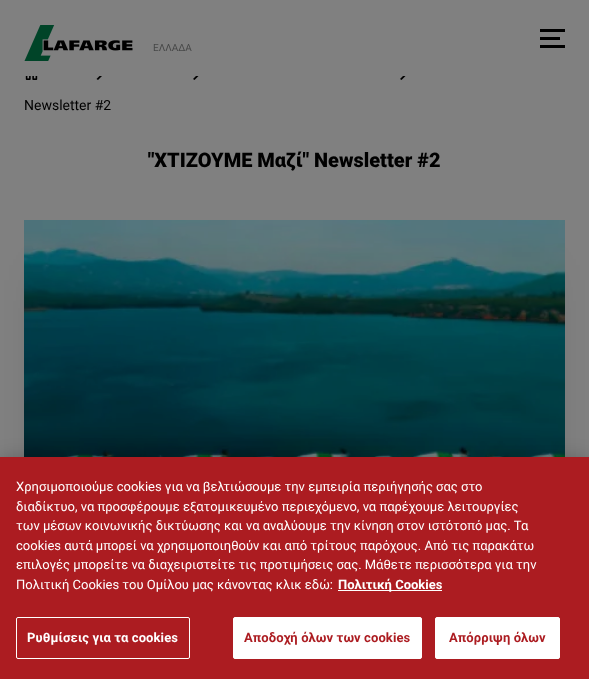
<svg xmlns="http://www.w3.org/2000/svg" width="589" height="679">
<style>
.a{font:10px Roboto;fill:#464747}
.b{font:14px Roboto;fill:#000}
.c{font:900 20px Roboto;fill:#000}
.d{font:13px Roboto;fill:#fff}
.e{font:bold 13px Roboto;fill:#fff}
.f{font:bold 13px Roboto;letter-spacing:0.1px;fill:#fff}
.g{font:bold 13px Roboto;letter-spacing:0.1px;fill:#ac1c21}
</style>
<rect width="100%" height="100%" fill="#808080"/>
<path fill="#000" d="M98 80l-1.5-1l5-5l1.5 1z"/>
<path fill="#000" d="M194.5 80l-1.5-1l5-5l1.5 1z"/>
<path fill="#000" d="M401.5 80l-1.5-1l5-5l1.5 1z"/>
<path fill="#808080" d="M99 74h308v2H99z"/>
<image href="1.png" x="24" y="25" width="109" height="36"/>
<path fill="#000" d="M540 29h25v3H540z"/>
<path fill="#000" d="M540 37h20v3H540z"/>
<path fill="#000" d="M540 45h25v3H540z"/>
<image href="2.png" x="25" y="76" width="13" height="4"/>
<path fill="#00000066" filter="blur(22.5px)" d="M54 280h481v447H54z"/>
<image href="3.png" x="24" y="220" width="541" height="237"/>
<path fill="#00000033" filter="blur(9px)" d="M0 457h589v222H0z"/>
<path fill="#ac1c21" d="M0 457h589v222H0z"/>
<path fill="#fff" d="M338 590h104v1H338z"/>
<rect fill="none" stroke="#fff" x="16.5" y="617.5" width="173" height="41" rx="1.5"/>
<rect fill="#fff" stroke="#fff" x="233.5" y="617.5" width="188" height="41" rx="1.5"/>
<rect fill="#fff" stroke="#fff" x="435.5" y="617.5" width="124" height="41" rx="1.5"/>
<text class="a" x="153" y="51">ΕΛΛΑΔΑ</text>
<text class="b" x="24" y="110">Newsletter #2</text>
<text class="c" x="148" y="167">"ΧΤΙΖΟΥΜΕ Μαζί" Newsletter #2</text>
<text class="d" x="16" y="491">Χρησιμοποιούμε cookies για να βελτιώσουμε την εμπειρία περιήγησής σας στο</text>
<text class="d" x="16" y="511">διαδίκτυο, να προσφέρουμε εξατομικευμένο περιεχόμενο, να παρέχουμε λειτουργίες</text>
<text class="d" x="16" y="530">των μέσων κοινωνικής δικτύωσης και να αναλύουμε την κίνηση στον ιστότοπό μας. Τα</text>
<text class="d" x="16" y="550">cookies αυτά μπορεί να χρησιμοποιηθούν και από τρίτους παρόχους. Από τις παρακάτω</text>
<text class="d" x="16" y="569">επιλογές μπορείτε να διαχειριστείτε τις προτιμήσεις σας. Μάθετε περισσότερα για την</text>
<text class="d" x="16" y="589">Πολιτική Cookies του Ομίλου μας κάνοντας κλικ εδώ:</text>
<text class="e" x="338" y="589">Πολιτική Cookies</text>
<text class="f" x="27" y="642">Ρυθμίσεις για τα cookies</text>
<text class="g" x="244" y="642">Αποδοχή όλων των cookies</text>
<text class="g" x="449" y="642">Απόρριψη όλων</text>
</svg>
